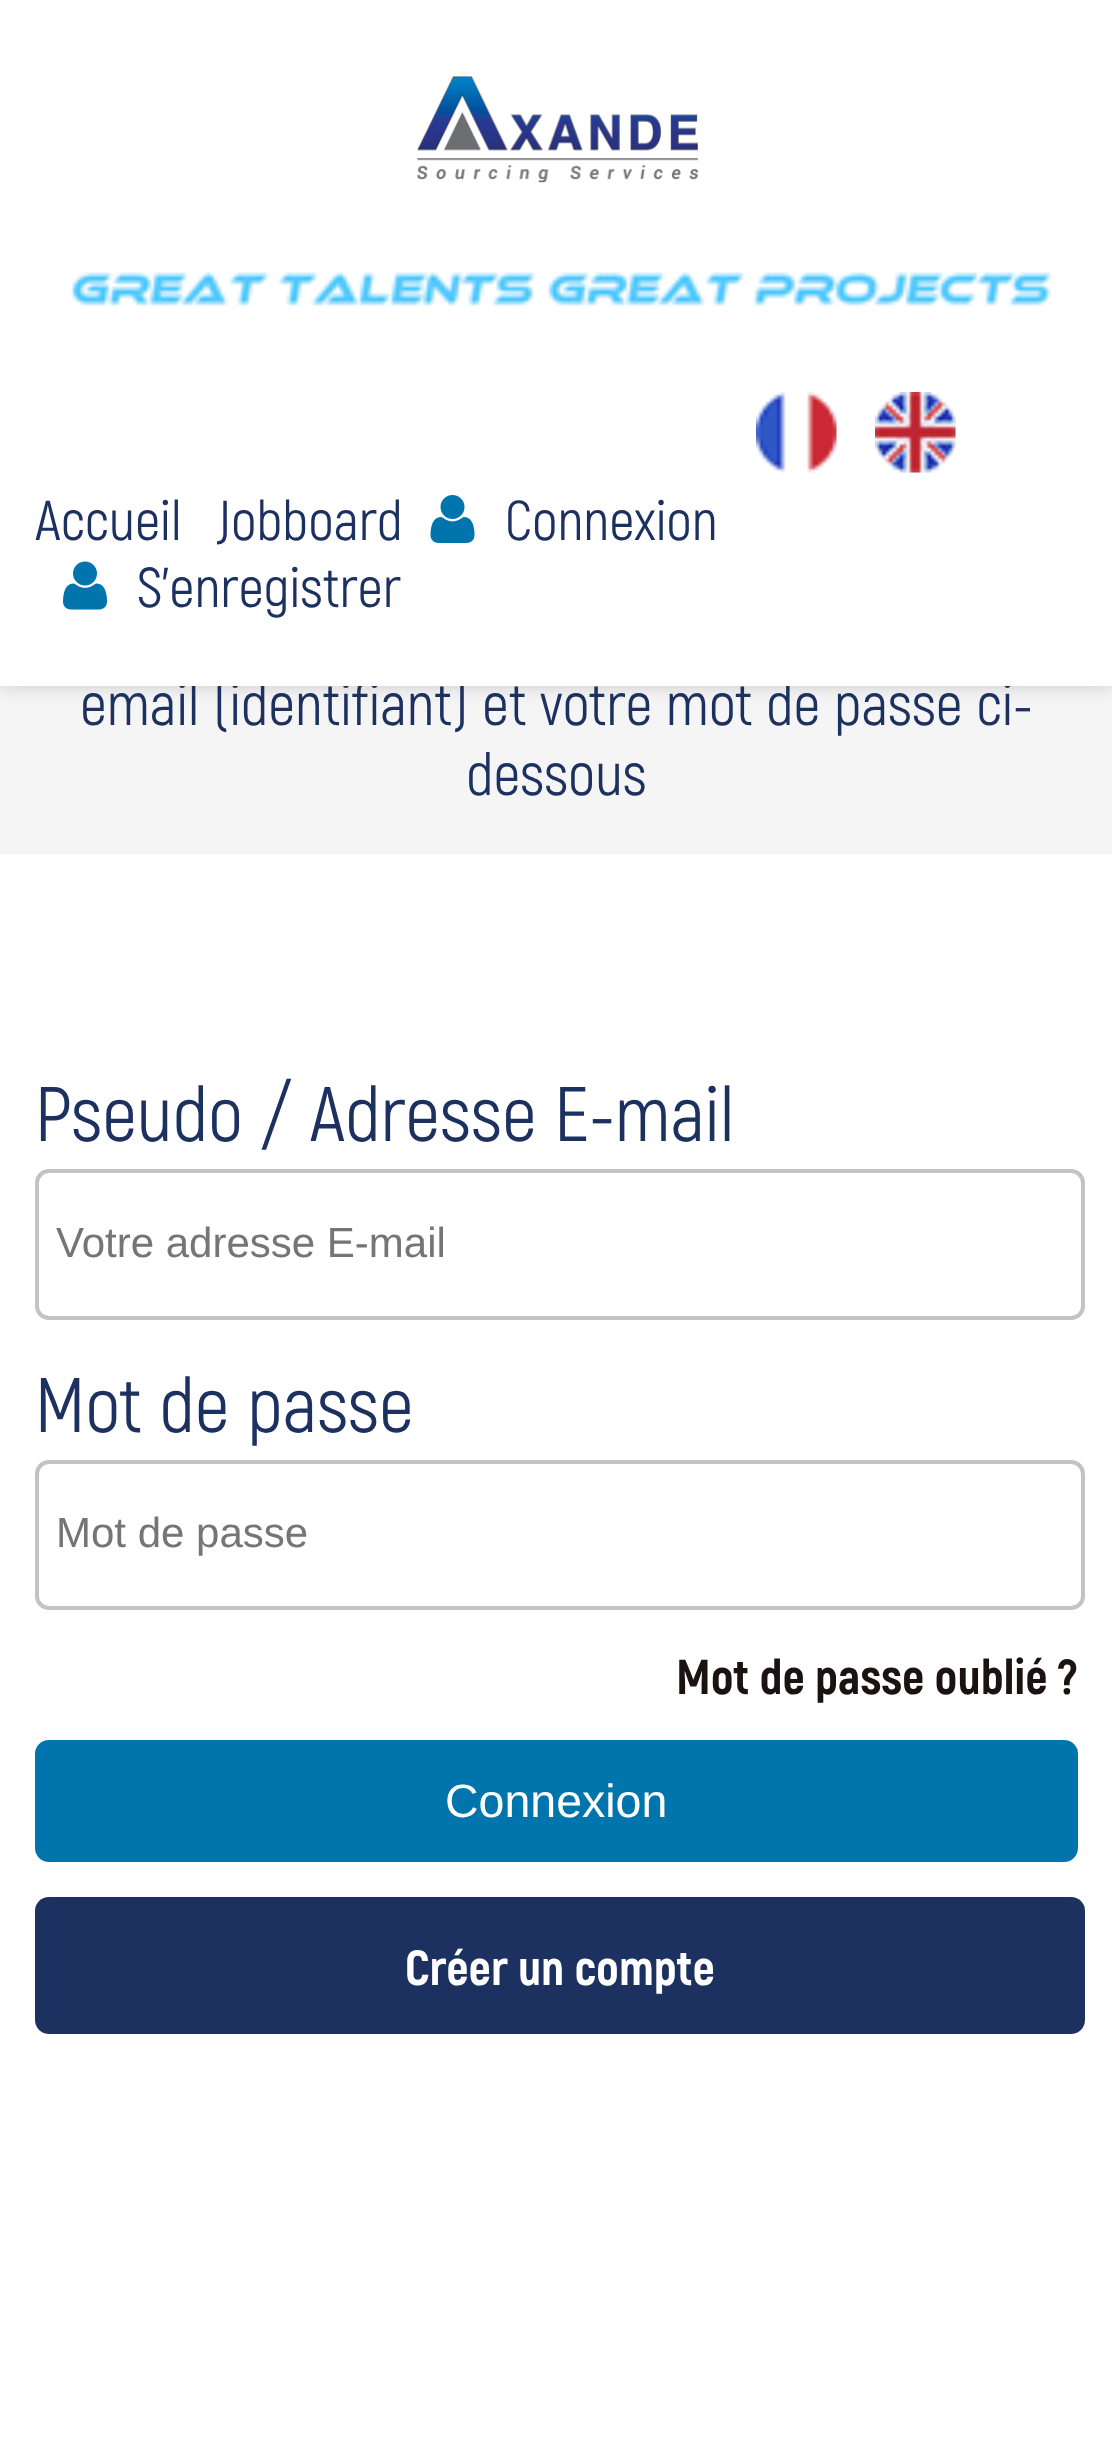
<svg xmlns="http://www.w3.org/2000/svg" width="1112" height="2455">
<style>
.a{font:59.5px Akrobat;fill:#1d3161}
.b{font:56px Akrobat;fill:#1d3161}
.c{font:77px Akrobat;fill:#1d3161}
.d{font:42px Liberation Sans;fill:#757575}
.e{font:800 49px Akrobat;fill:#1b1212}
.f{font:46.5px Liberation Sans;fill:#fff}
.g{font:800 49px Akrobat;fill:#fff}
</style>
<rect width="100%" height="100%" fill="#fff"/>
<path fill="#f5f5f5" d="M0 686h1112v168H0z"/>
<path fill="#c9c9ca" filter="blur(9px)" d="M0 0h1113v686H0z"/>
<rect fill="none" stroke="#c4c3c3" stroke-width="4" x="37" y="1171" width="1046" height="147" rx="12"/>
<rect fill="none" stroke="#c4c3c3" stroke-width="4" x="37" y="1462" width="1046" height="146" rx="12"/>
<rect fill="#0075ad" x="35" y="1740" width="1043" height="122" rx="14"/>
<rect fill="#1d3161" x="35" y="1897" width="1050" height="137" rx="14"/>
<text class="a" x="80" y="725">email (identifiant) et votre mot de passe ci-</text>
<path fill="#fff" d="M0 0h1112v686H0z"/>
<text class="b" x="137" y="607">S'enregistrer</text>
<text class="b" x="505" y="540">Connexion</text>
<text class="b" x="217" y="540">Jobboard</text>
<text class="b" x="35" y="540">Accueil</text>
<image href="4.png" x="875" y="392" width="81" height="81"/>
<image href="3.png" x="756" y="392" width="81" height="81"/>
<image href="6.png" x="63" y="561" width="44" height="49"/>
<image href="5.png" x="430" y="495" width="45" height="48"/>
<image href="2.png" x="69" y="271" width="983" height="35"/>
<image href="1.png" x="417" y="76" width="281" height="107"/>
<text class="a" x="466" y="795">dessous</text>
<text class="c" x="35" y="1141">Pseudo / Adresse E-mail</text>
<text class="d" x="56" y="1257">Votre adresse E-mail</text>
<text class="c" x="35" y="1432">Mot de passe</text>
<text class="d" x="56" y="1547">Mot de passe</text>
<text class="e" x="676" y="1694">Mot de passe oublié ?</text>
<text class="f" x="445" y="1817">Connexion</text>
<text class="g" x="405" y="1985">Créer un compte</text>
</svg>
